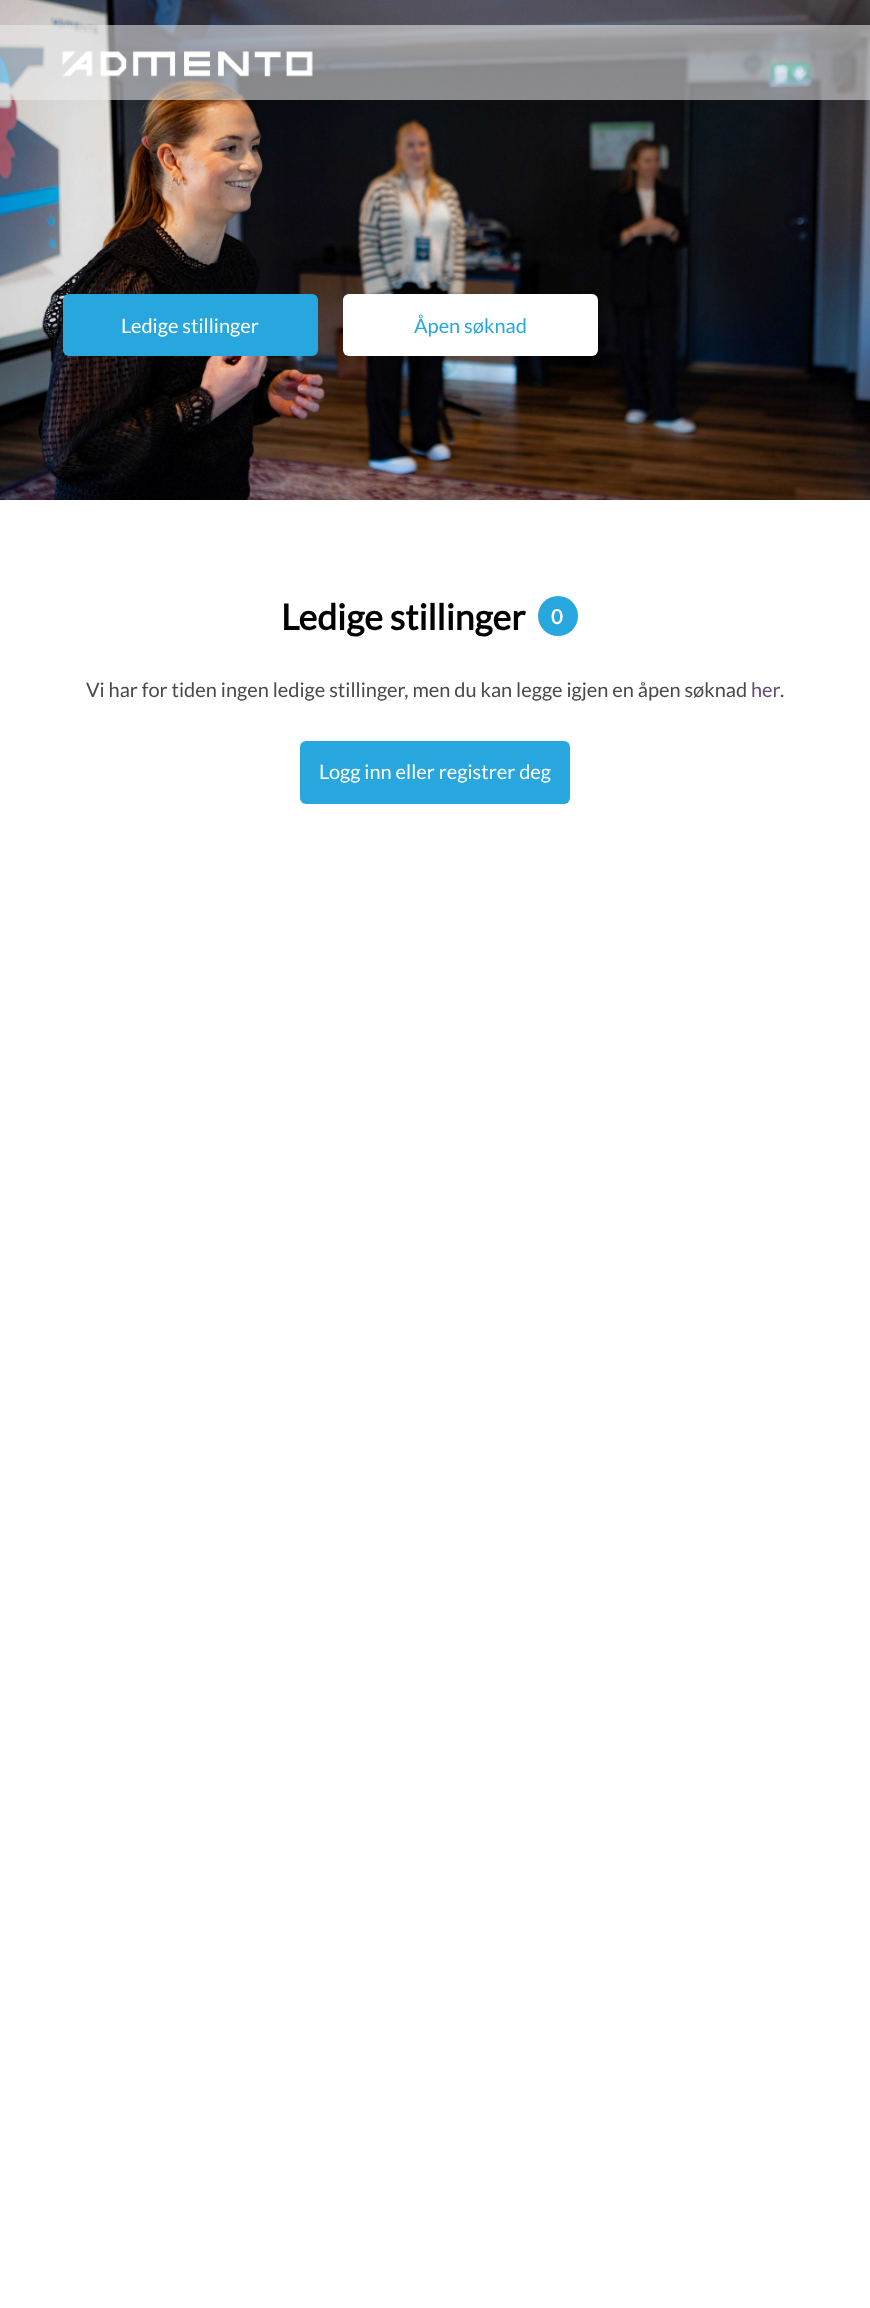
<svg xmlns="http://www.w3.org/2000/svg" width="870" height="2308">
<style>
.a{font:20px Lato;fill:#fff}
.b{font:20px Lato;fill:#27a7de}
.c{font:bold 35.5px Lato;fill:#000}
.d{font:bold 20px Lato;fill:#fff}
.e{font:20px Lato;fill:#494949}
.f{font:20px Lato;fill:#624e77}
</style>
<rect width="100%" height="100%" fill="#fff"/>
<image href="2.png" x="0" y="0" width="870" height="500"/>
<path fill="#ededed8f" d="M0 25h870v75H0z"/>
<image href="1.png" x="62" y="51" width="251" height="26"/>
<rect fill="#27a7de" x="63" y="294" width="255" height="62" rx="6"/>
<rect fill="#fff" x="343" y="294" width="255" height="62" rx="6"/>
<circle fill="#27a7de" cx="558" cy="616" r="20"/>
<rect fill="#27a7de" x="300" y="741" width="270" height="63" rx="6"/>
<text class="a" x="121" y="333">Ledige stillinger</text>
<text class="b" x="414" y="333">Åpen søknad</text>
<text class="c" x="281" y="630">Ledige stillinger</text>
<text class="d" x="551" y="624">0</text>
<text class="e" x="86" y="697">Vi har for tiden ingen ledige stillinger, men du kan legge igjen en åpen søknad</text>
<text class="f" x="751" y="697">her</text>
<text class="e" x="780" y="697">.</text>
<text class="a" x="319" y="779">Logg inn eller registrer deg</text>
</svg>
